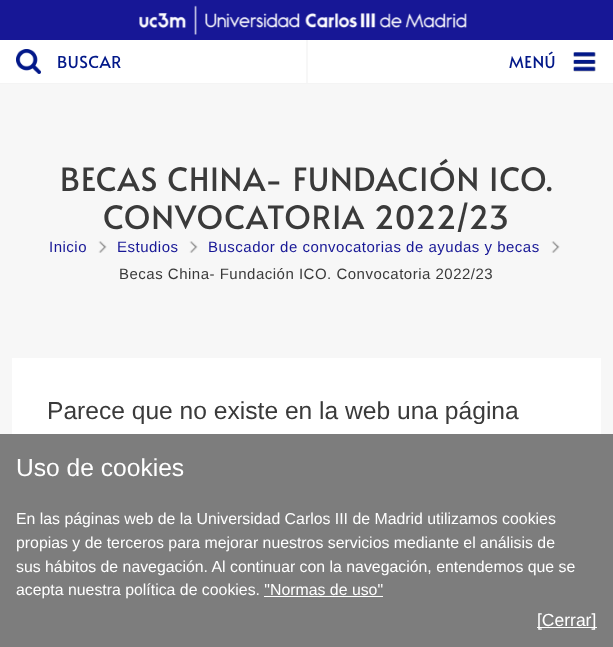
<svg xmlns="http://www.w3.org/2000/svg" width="613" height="647">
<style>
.a{font:16.5px Alata;letter-spacing:0.5px;fill:#021889}
.b{font:32px Alata;letter-spacing:1px;fill:#3a3a3a}
.c{font:15px Liberation Sans;letter-spacing:0.5px;fill:#171796}
.d{font:15px Liberation Sans;letter-spacing:0.5px;fill:#3a3a3a}
.e{font:24.6px Liberation Sans;fill:#3a3a3a}
.f{font:24.6px Liberation Sans;fill:#fff}
.g{font:15.85px Liberation Sans;fill:#fff}
.h{font:17.5px Liberation Sans;fill:#fff}
</style>
<rect width="100%" height="100%" fill="#f7f7f7"/>
<path fill="#171796" d="M0 0h613v40H0z"/>
<image href="1.png" x="139" y="5" width="328" height="30"/>
<path fill="#fff" d="M0 40h613v43H0z"/>
<path fill="#f4f4f4" d="M0 83h613v1H0z"/>
<path fill="#f7f7f7" d="M306 40h2v43H306z"/>
<image href="2.png" x="16" y="49" width="25" height="25"/>
<image href="3.png" x="573" y="52" width="23" height="20"/>
<image href="4.png" x="98" y="241" width="9" height="12"/>
<image href="5.png" x="189" y="241" width="9" height="12"/>
<image href="4.png" x="551" y="241" width="9" height="12"/>
<path fill="#fff" d="M12 358h589v76H12z"/>
<path fill="#7d7d7d" d="M0 434h613v213H0z"/>
<path fill="#fff" d="M264 596h119v1H264z"/>
<path fill="#fff" d="M537 627h60v1H537z"/>
<text class="a" x="57" y="68">BUSCAR</text>
<text class="a" x="509" y="68">MENÚ</text>
<text class="b" x="60" y="191">BECAS CHINA- FUNDACIÓN ICO.</text>
<text class="b" x="103" y="229">CONVOCATORIA 2022/23</text>
<text class="c" x="49" y="252">Inicio</text>
<text class="c" x="117" y="252">Estudios</text>
<text class="c" x="208" y="252">Buscador de convocatorias de ayudas y becas</text>
<text class="d" x="119" y="279">Becas China- Fundación ICO. Convocatoria 2022/23</text>
<text class="e" x="47" y="419">Parece que no existe en la web una página</text>
<text class="f" x="16" y="476">Uso de cookies</text>
<text class="g" x="16" y="524">En las páginas web de la Universidad Carlos III de Madrid utilizamos cookies</text>
<text class="g" x="16" y="548">propias y de terceros para mejorar nuestros servicios mediante el análisis de</text>
<text class="g" x="16" y="572">sus hábitos de navegación. Al continuar con la navegación, entendemos que se</text>
<text class="g" x="16" y="595">acepta nuestra política de cookies. "Normas de uso"</text>
<text class="h" x="537" y="626">[Cerrar]</text>
</svg>
